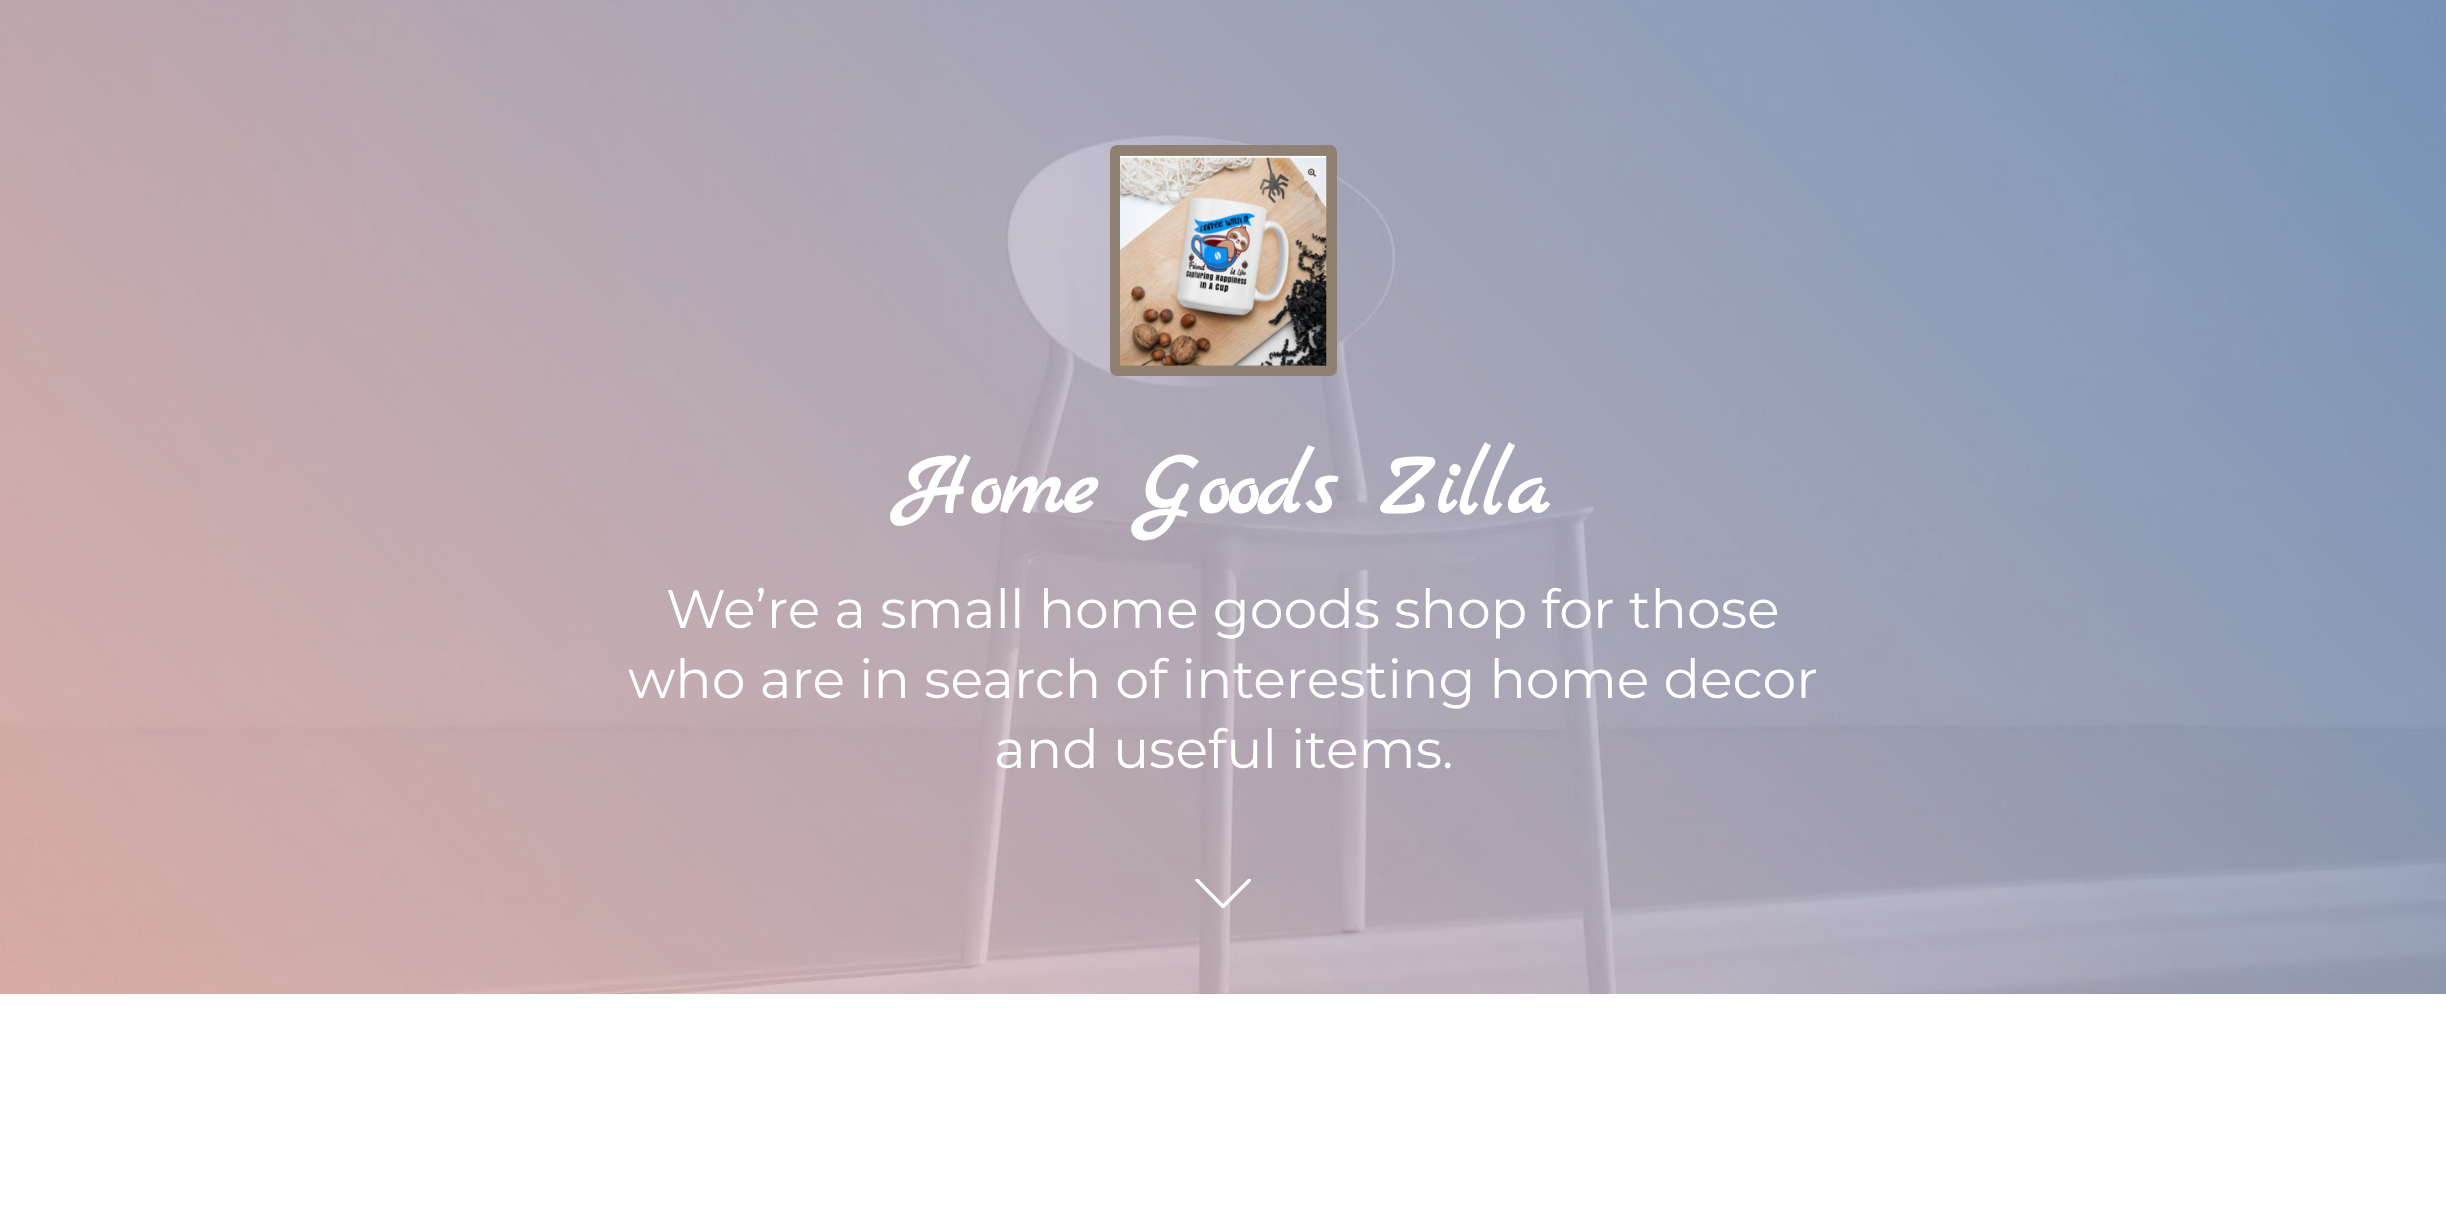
<svg xmlns="http://www.w3.org/2000/svg" width="2446" height="1208">
<style>
.a{font:bold 88px Marck Script;fill:#fff}
.b{font:53.9px Montserrat;fill:#fff}
</style>
<defs>
<clipPath id="clip1"><path d="M1195 879h56v29H1195z"/></clipPath>
</defs>
<rect width="100%" height="100%" fill="#fff"/>
<image href="1.png" x="0" y="0" width="2446" height="994"/>
<rect fill="none" stroke="#908072" stroke-width="11" x="1115.5" y="150.5" width="216" height="220" rx="1.5"/>
<image href="2.png" x="1120" y="155" width="207" height="211"/>
<g clip-path="url(#clip1)">
<path fill="none" stroke="#fff" stroke-width="3.5" stroke-linecap="round" stroke-linejoin="round" d="M1249.5 880l-26.5 26.5l-26-26.5"/>
</g>
<text class="a" x="898" y="513">Home Goods Zilla</text>
<text class="b" x="666" y="628">We’re a small home goods shop for those</text>
<text class="b" x="628" y="698">who are in search of interesting home decor</text>
<text class="b" x="994" y="768">and useful items.</text>
</svg>
